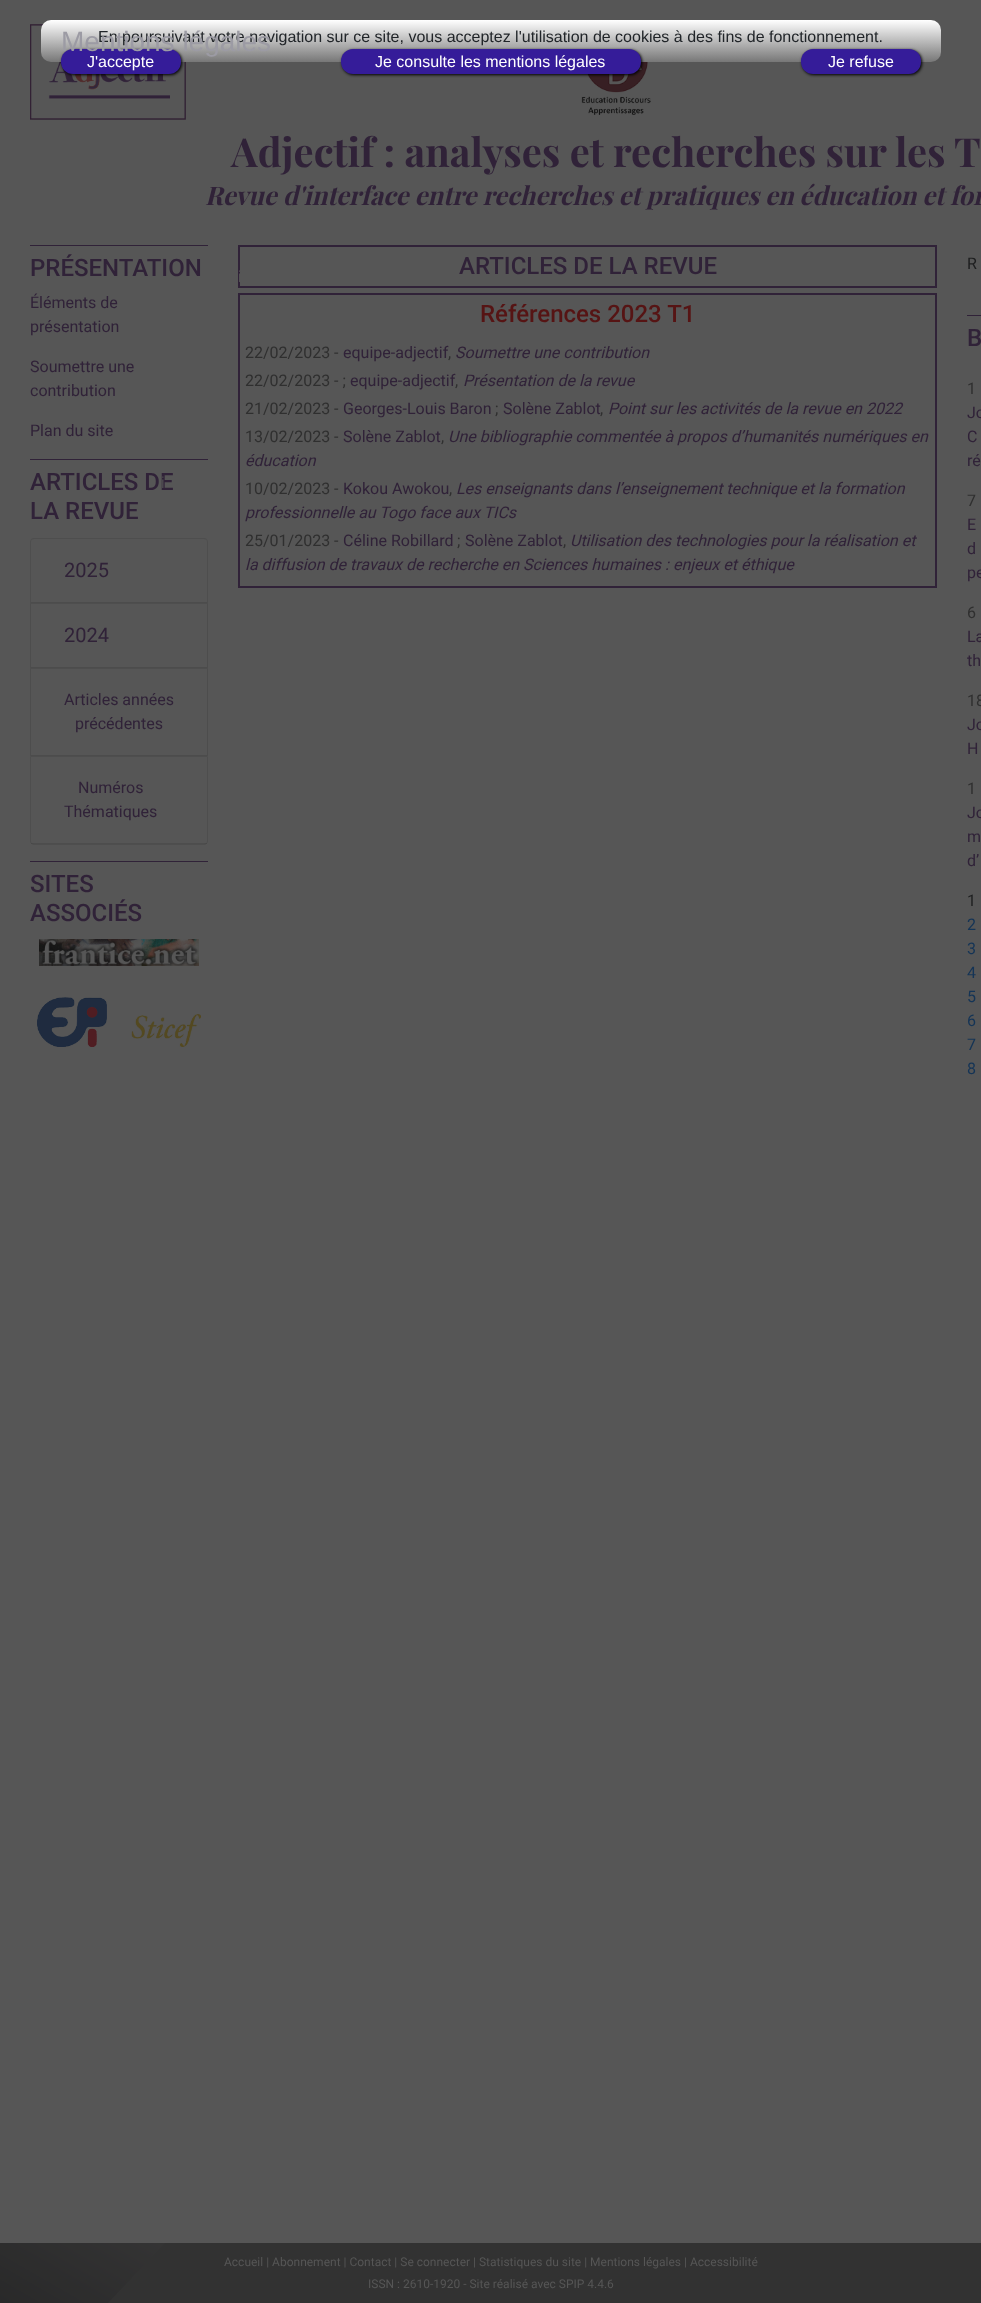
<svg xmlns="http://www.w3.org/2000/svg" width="981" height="2303">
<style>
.a{font:16px Liberation Sans;fill:#565656}
.b{font:16px Liberation Sans;fill:#212529}
.c{font:28px Liberation Sans;fill:#9c9ba4}
.d{font:16px Liberation Sans;fill:#fff}
.e{font:bold 40px Playfair Display;fill:#302238}
.f{font:italic bold 25.6px Playfair Display;fill:#302238}
.g{font:500 24px Roboto;fill:#302238}
.h{font:16px Roboto;fill:#302238}
.i{font:16px Liberation Sans;fill:#4d4b4f}
.j{font:20px Roboto;fill:#302238}
.k{font:500 24px Roboto;fill:#561414}
.l{font:16px Roboto;fill:#2f2f2f}
.m{font:italic 16px Roboto;fill:#302238}
.n{font:16px Roboto;fill:#1d1e1f}
.o{font:16px Roboto;fill:#143456}
.p{font:12px Roboto;fill:#565656}
</style>
<defs>
<linearGradient id="g1" gradientUnits="userSpaceOnUse" x1="491" y1="20" x2="491" y2="62"><stop offset="0" stop-color="#fff"/><stop offset="1" stop-color="#777"/></linearGradient>
</defs>
<rect width="100%" height="100%" fill="#565656"/>
<image href="1.png" x="30" y="24" width="156" height="96"/>
<rect fill="url(#g1)" x="41" y="20" width="900" height="42" rx="10"/>
<rect fill="#000" filter="blur(1.5px)" x="62" y="50" width="120" height="25" rx="12"/>
<rect fill="#351c99" x="61" y="49" width="120" height="25" rx="12"/>
<image href="2.png" x="581" y="62" width="70" height="53"/>
<rect fill="#000" filter="blur(1.5px)" x="342" y="50" width="300" height="25" rx="12"/>
<rect fill="#351c99" x="341" y="49" width="300" height="25" rx="12"/>
<rect fill="#000" filter="blur(1.5px)" x="802" y="50" width="120" height="25" rx="12"/>
<rect fill="#351c99" x="801" y="49" width="120" height="25" rx="12"/>
<path fill="#302238" d="M30 245h178v1H30z"/>
<path fill="#302238" d="M30 459h178v1H30z"/>
<path fill="#4e4e4e" fill-rule="evenodd" d="M34 538h170c2 0 4 2 4 4v61h-178v-61c0-2 2-4 4-4zm0 1h170c2 0 3 1 3 3v61h-176v-61c0-2 1-3 3-3z"/>
<path fill="#4c4c4c" d="M31 602h176v1H31z"/>
<path fill="#4e4e4e" d="M30 603h178l-1 1h-176z"/>
<path fill="#1414141f" d="M208 603v65h-1v-64z"/>
<path fill="#1414141f" d="M30 668v-65l1 1v64z"/>
<path fill="#4c4c4c" d="M31 667h176v1H31z"/>
<path fill="#4e4e4e" d="M30 668h178l-1 1h-176z"/>
<path fill="#1414141f" d="M208 668v88h-1v-87z"/>
<path fill="#1414141f" d="M30 756v-88l1 1v87z"/>
<path fill="#4c4c4c" d="M31 755h176v1H31z"/>
<path fill="none" stroke="#4e4e4e" d="M30.5 756.5h177v84.5c0 2-1.5 3.5-3.5 3.5h-170c-2 0-3.5-1.5-3.5-3.5z"/>
<path fill="#1414141f" d="M31 843h176v1H31z"/>
<path fill="#302238" d="M30 861h178v1H30z"/>
<image href="3.png" x="39" y="939" width="160" height="27"/>
<image href="4.png" x="37" y="997" width="70" height="50"/>
<image href="5.png" x="131" y="1014" width="70" height="33"/>
<path fill="none" stroke="#302238" stroke-width="2" d="M239 246h697v41H239z"/>
<path fill="none" stroke="#302238" stroke-width="2" d="M239 294h697v293H239z"/>
<path fill="#302238" d="M967 315h14v1H967z"/>
<path fill="#323232" d="M0 2243h981v60H0z"/>
<image href="6.png" x="0" y="2243" width="165" height="60"/>
<text class="a" x="238" y="282">i</text>
<text class="b" x="98" y="42">En poursuivant votre navigation sur ce site, vous acceptez l'utilisation de cookies à des fins de fonctionnement.</text>
<text class="c" x="61" y="51">Mentions légales</text>
<text class="d" x="87" y="67">J'accepte</text>
<text class="d" x="375" y="67">Je consulte les mentions légales</text>
<text class="d" x="828" y="67">Je refuse</text>
<text class="e" x="231" y="167">Adjectif : analyses et recherches sur les T</text>
<text class="f" x="205" y="205">Revue d'interface entre recherches et pratiques en éducation et for</text>
<text class="g" x="30" y="276">PRÉSENTATION</text>
<text class="h" x="30" y="308">Éléments de</text>
<text class="h" x="30" y="332">présentation</text>
<text class="h" x="30" y="372">Soumettre une</text>
<text class="h" x="30" y="396">contribution</text>
<text class="h" x="30" y="436">Plan du site</text>
<text class="g" x="30" y="490">ARTICLES DE</text>
<text class="i" x="161" y="488">i</text>
<text class="g" x="30" y="519">LA REVUE</text>
<text class="j" x="64" y="577">2025</text>
<text class="j" x="64" y="642">2024</text>
<text class="h" x="64" y="705">Articles années</text>
<text class="h" x="75" y="729">précédentes</text>
<text class="h" x="78" y="793">Numéros</text>
<text class="h" x="64" y="817">Thématiques</text>
<text class="g" x="30" y="892">SITES</text>
<text class="g" x="30" y="921">ASSOCIÉS</text>
<text class="g" x="459" y="274">ARTICLES DE LA REVUE</text>
<text class="k" x="480" y="322">Références 2023 T1</text>
<text class="l" x="245" y="358">22/02/2023 -</text>
<text class="h" x="343" y="358">equipe-adjectif</text>
<text class="l" x="448" y="358">,</text>
<text class="m" x="455" y="358">Soumettre une contribution</text>
<text class="l" x="245" y="386">22/02/2023 - ;</text>
<text class="h" x="350" y="386">equipe-adjectif</text>
<text class="l" x="455" y="386">,</text>
<text class="m" x="463" y="386">Présentation de la revue</text>
<text class="l" x="245" y="414">21/02/2023 -</text>
<text class="h" x="343" y="414">Georges-Louis Baron</text>
<text class="l" x="495" y="414">;</text>
<text class="h" x="503" y="414">Solène Zablot</text>
<text class="l" x="600" y="414">,</text>
<text class="m" x="608" y="414">Point sur les activités de la revue en 2022</text>
<text class="l" x="245" y="442">13/02/2023 -</text>
<text class="h" x="343" y="442">Solène Zablot</text>
<text class="l" x="441" y="442">,</text>
<text class="m" x="448" y="442">Une bibliographie commentée à propos d’humanités numériques en</text>
<text class="m" x="245" y="466">éducation</text>
<text class="l" x="245" y="494">10/02/2023 -</text>
<text class="h" x="343" y="494">Kokou Awokou</text>
<text class="l" x="449" y="494">,</text>
<text class="m" x="456" y="494">Les enseignants dans l’enseignement technique et la formation</text>
<text class="m" x="245" y="518">professionnelle au Togo face aux TICs</text>
<text class="l" x="245" y="546">25/01/2023 -</text>
<text class="h" x="343" y="546">Céline Robillard</text>
<text class="l" x="457" y="546">;</text>
<text class="h" x="465" y="546">Solène Zablot</text>
<text class="l" x="563" y="546">,</text>
<text class="m" x="570" y="546">Utilisation des technologies pour la réalisation et</text>
<text class="m" x="245" y="570">la diffusion de travaux de recherche en Sciences humaines : enjeux et éthique</text>
<text class="n" x="967" y="269">R</text>
<text class="g" x="967" y="346">B</text>
<text class="l" x="967" y="394">1</text>
<text class="h" x="967" y="418">Jo</text>
<text class="h" x="967" y="442">C</text>
<text class="h" x="967" y="466">ré</text>
<text class="l" x="967" y="506">7</text>
<text class="h" x="967" y="530">E</text>
<text class="h" x="967" y="554">d</text>
<text class="h" x="967" y="578">pe</text>
<text class="l" x="967" y="618">6</text>
<text class="h" x="967" y="642">La</text>
<text class="h" x="967" y="666">th</text>
<text class="l" x="967" y="706">18</text>
<text class="h" x="967" y="730">Jo</text>
<text class="h" x="967" y="754">H</text>
<text class="l" x="967" y="794">1</text>
<text class="h" x="967" y="818">Jo</text>
<text class="h" x="967" y="842">m</text>
<text class="h" x="967" y="866">d’</text>
<text class="n" x="967" y="906">1</text>
<text class="o" x="967" y="930">2</text>
<text class="o" x="967" y="954">3</text>
<text class="o" x="967" y="978">4</text>
<text class="o" x="967" y="1002">5</text>
<text class="o" x="967" y="1026">6</text>
<text class="o" x="967" y="1050">7</text>
<text class="o" x="967" y="1074">8</text>
<text class="p" x="224" y="2266">Accueil | Abonnement | Contact | Se connecter | Statistiques du site | Mentions légales | Accessibilité</text>
<text class="p" x="368" y="2288">ISSN : 2610-1920 - Site réalisé avec SPIP 4.4.6</text>
</svg>
